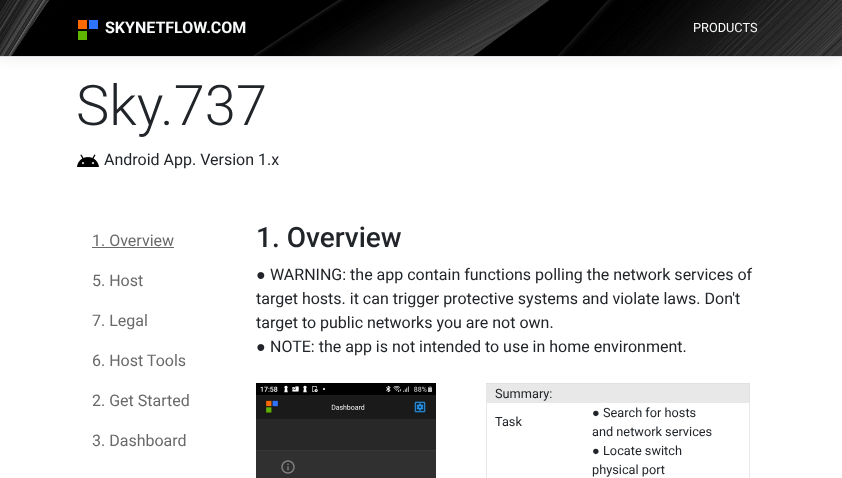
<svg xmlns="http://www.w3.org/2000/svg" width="842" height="478">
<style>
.a{font:bold 16px Roboto;fill:#f8f9fa}
.b{font:12.75px Roboto;fill:#f8f9fa}
.c{font:300 56px Roboto;fill:#212529}
.d{font:16px Roboto;fill:#212529}
.e{font:16px Roboto;fill:#696969}
.f{font:500 28px Roboto;fill:#212529}
.g{font:16px Liberation Sans;fill:#212529}
.h{font:12.75px Roboto;fill:#212529}
.i{font:12.75px Liberation Sans;fill:#212529}
</style>
<rect width="100%" height="100%" fill="#fff"/>
<path fill="#e8e8e8" d="M486 383h1v95H486z"/>
<path fill="#e8e8e8" d="M749 403h1v75H749z"/>
<path fill="#e1e1e1" d="M486 383h1v1H486z"/>
<path fill="#0000000d" filter="blur(6px)" d="M0 4h842v57H0z"/>
<image href="1.png" x="0" y="0" width="842" height="56"/>
<path fill="#dee2e6" d="M0 56h842v1H0z"/>
<image href="2.png" x="78" y="20" width="20" height="20"/>
<image href="3.png" x="77" y="154" width="22" height="13"/>
<path fill="#696969" d="M92 247h82v1H92z"/>
<image href="4.png" x="256" y="383" width="180" height="95"/>
<path fill="#e8e8e8" d="M487 384h262v19H487z"/>
<path fill="#e1e1e1" d="M749 383h1v20H749z"/>
<path fill="#e1e1e1" d="M487 383h263v1H487z"/>
<path fill="#dedede" d="M749 383h1v1H749z"/>
<text class="a" x="105" y="33">SKYNETFLOW.COM</text>
<text class="b" x="693" y="32">PRODUCTS</text>
<text class="c" x="76" y="125">Sky.737</text>
<text class="d" x="104" y="165">Android App. Version 1.x</text>
<text class="e" x="92" y="246">1. Overview</text>
<text class="e" x="92" y="286">5. Host</text>
<text class="e" x="92" y="326">7. Legal</text>
<text class="e" x="92" y="366">6. Host Tools</text>
<text class="e" x="92" y="406">2. Get Started</text>
<text class="e" x="92" y="446">3. Dashboard</text>
<text class="f" x="256" y="247">1. Overview</text>
<text class="g" x="256" y="280">●</text>
<text class="d" x="270" y="280">WARNING: the app contain functions polling the network services of</text>
<text class="d" x="256" y="304">target hosts. it can trigger protective systems and violate laws. Don't</text>
<text class="d" x="256" y="328">target to public networks you are not own.</text>
<text class="g" x="256" y="352">●</text>
<text class="d" x="270" y="352">NOTE: the app is not intended to use in home environment.</text>
<text class="h" x="495" y="398">Summary:</text>
<text class="h" x="495" y="426">Task</text>
<text class="i" x="592" y="417">●</text>
<text class="h" x="603" y="417">Search for hosts</text>
<text class="h" x="592" y="436">and network services</text>
<text class="i" x="592" y="455">●</text>
<text class="h" x="603" y="455">Locate switch</text>
<text class="h" x="592" y="474">physical port</text>
</svg>
